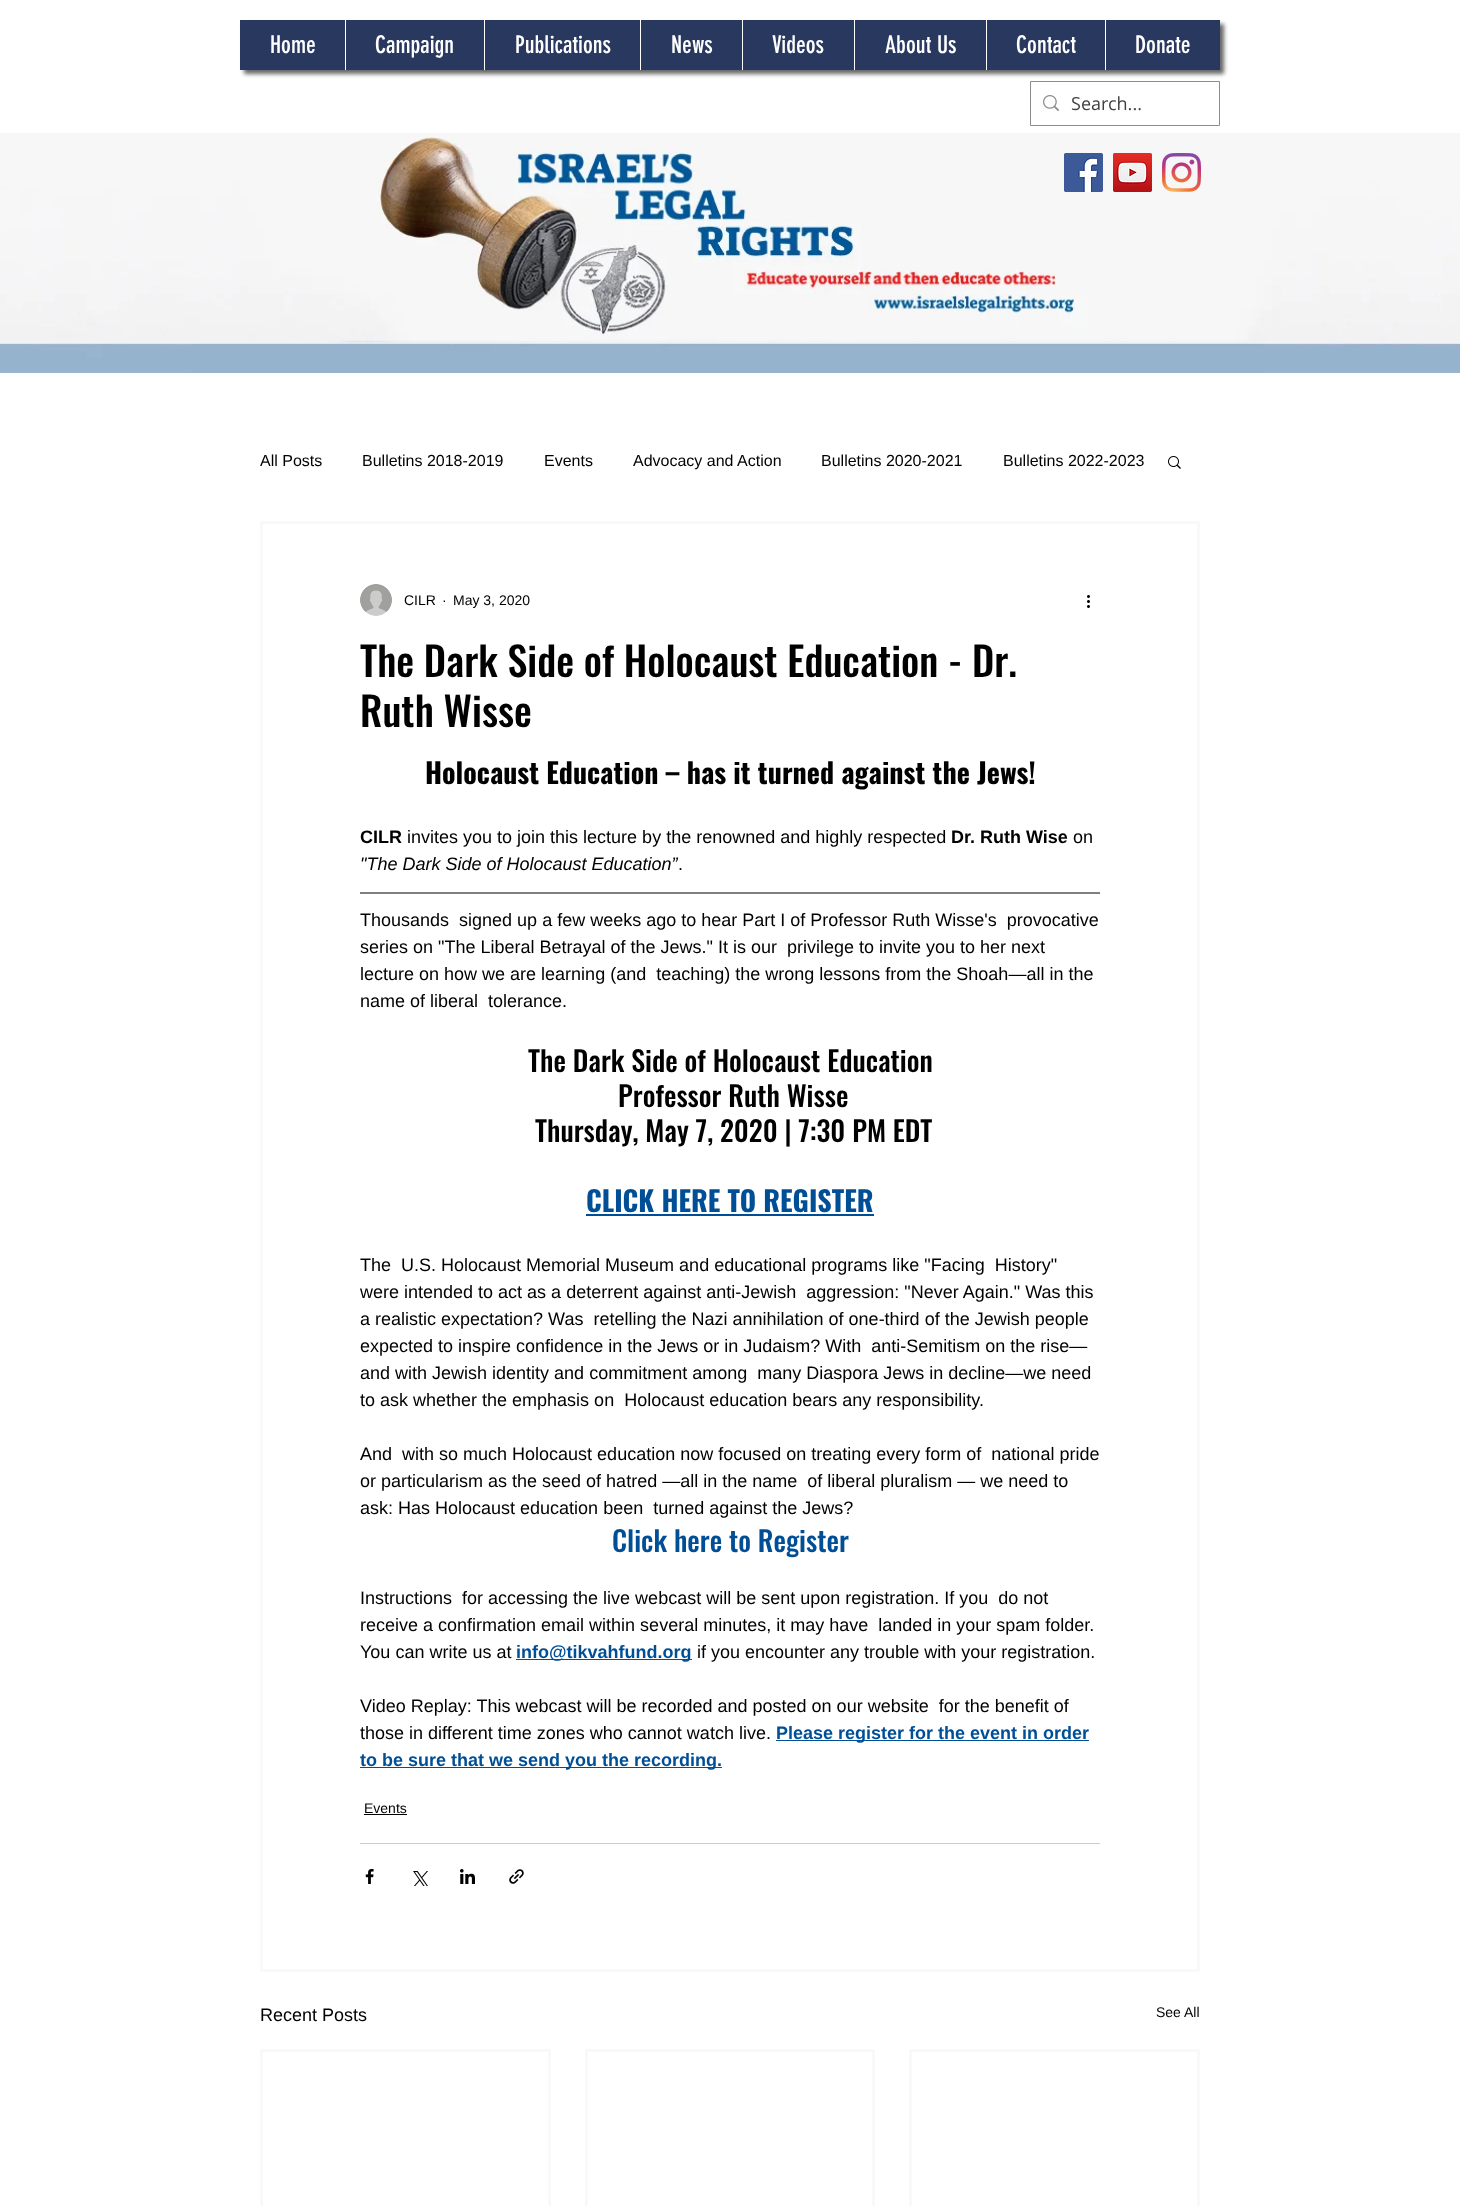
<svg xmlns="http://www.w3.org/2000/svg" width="1460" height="2206">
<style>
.a{font:24px 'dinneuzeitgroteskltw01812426';fill:#fff}
.b{font:18px Open Sans;fill:#414141}
.c{font:16px Liberation Sans;fill:#000}
.d{font:14px Liberation Sans;fill:#000}
.e{font:500 40px Oswald;fill:#000}
.f{font:bold 28px Oswald;fill:#000}
.g{font:bold 18px Liberation Sans;fill:#000}
.h{font:18px Liberation Sans;fill:#000}
.i{font:italic 18px Liberation Sans;fill:#000}
.j{font:500 28px Oswald;fill:#000}
.k{font:bold 28px Oswald;fill:#004f96}
.l{font:500 28px Oswald;fill:#004f96}
.m{font:bold 18px Liberation Sans;fill:#004f96}
</style>
<rect width="100%" height="100%" fill="#fff"/>
<path fill="#00000099" filter="blur(2px)" d="M244 24h980v50H244z"/>
<path fill="#29385f" d="M240 20h980v50H240z"/>
<path fill="#fff" d="M345 20h1v50H345z"/>
<path fill="#fff" d="M484 20h1v50H484z"/>
<path fill="#fff" d="M640 20h1v50H640z"/>
<path fill="#fff" d="M742 20h1v50H742z"/>
<path fill="#fff" d="M854 20h1v50H854z"/>
<path fill="#fff" d="M986 20h1v50H986z"/>
<path fill="#fff" d="M1105 20h1v50H1105z"/>
<path fill="none" stroke="#8d8d8d" d="M1030.5 81.5h189v44H1030.5z"/>
<image href="1.png" x="1043" y="95" width="16" height="17"/>
<image href="2.png" x="0" y="133" width="1460" height="240"/>
<image href="3.png" x="1064" y="153" width="39" height="39"/>
<image href="4.png" x="1113" y="153" width="39" height="39"/>
<image href="5.png" x="1162" y="153" width="39" height="39"/>
<image href="6.png" x="1168" y="456" width="13" height="13"/>
<path fill="none" stroke="#f9f9f9" stroke-width="3" d="M261.5 522.5h937v1448H261.5z"/>
<image href="7.png" x="360" y="584" width="32" height="32"/>
<image href="8.png" x="1087" y="595" width="3" height="13"/>
<path fill="none" stroke="#000" d="M360 893h740"/>
<path fill="#004f96" d="M586 1214h288v2H586z"/>
<path fill="#004f96" d="M516 1659h176v1H516z"/>
<path fill="#004f96" d="M776 1740h313v1H776z"/>
<path fill="#004f96" d="M360 1767h362v1H360z"/>
<path fill="#000" d="M364 1814h43v1H364z"/>
<path fill="#ccc" d="M360 1843h740v1H360z"/>
<image href="9.png" x="365" y="1869" width="9" height="15"/>
<image href="10.png" x="413" y="1871" width="15" height="15"/>
<image href="11.png" x="460" y="1869" width="15" height="15"/>
<image href="12.png" x="509" y="1869" width="15" height="15"/>
<path fill="none" stroke="#f9f9f9" stroke-width="3" d="M261.5 2050.5h288v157H261.5z"/>
<path fill="none" stroke="#f9f9f9" stroke-width="3" d="M586.5 2050.5h287v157H586.5z"/>
<path fill="none" stroke="#f9f9f9" stroke-width="3" d="M910.5 2050.5h288v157H910.5z"/>
<text class="a" x="270" y="53">Home</text>
<text class="a" x="375" y="53">Campaign</text>
<text class="a" x="515" y="53">Publications</text>
<text class="a" x="671" y="53">News</text>
<text class="a" x="772" y="53">Videos</text>
<text class="a" x="885" y="53">About Us</text>
<text class="a" x="1016" y="53">Contact</text>
<text class="a" x="1135" y="53">Donate</text>
<text class="b" x="1071" y="110">Search...</text>
<text class="c" x="260" y="466">All Posts</text>
<text class="c" x="362" y="466">Bulletins 2018-2019</text>
<text class="c" x="544" y="466">Events</text>
<text class="c" x="633" y="466">Advocacy and Action</text>
<text class="c" x="821" y="466">Bulletins 2020-2021</text>
<text class="c" x="1003" y="466">Bulletins 2022-2023</text>
<text class="d" x="404" y="605">CILR</text>
<text class="d" x="442" y="605">·</text>
<text class="d" x="453" y="605">May 3, 2020</text>
<text class="e" x="360" y="677">The Dark Side of Holocaust Education - Dr.</text>
<text class="e" x="360" y="727">Ruth Wisse</text>
<text class="f" x="425" y="784">Holocaust Education – has it turned against the Jews!</text>
<text class="g" x="360" y="843">CILR</text>
<text class="h" x="407" y="843">invites you to join this lecture by the renowned and highly respected</text>
<text class="g" x="951" y="843">Dr. Ruth Wise</text>
<text class="h" x="1073" y="843">on</text>
<text class="i" x="360" y="870">"The Dark Side of Holocaust Education”</text>
<text class="h" x="678" y="870">.</text>
<text class="h" xml:space="preserve" x="360" y="926">Thousands  signed up a few weeks ago to hear Part I of Professor Ruth Wisse's  provocative</text>
<text class="h" xml:space="preserve" x="360" y="953">series on "The Liberal Betrayal of the Jews." It is our  privilege to invite you to her next</text>
<text class="h" xml:space="preserve" x="360" y="980">lecture on how we are learning (and  teaching) the wrong lessons from the Shoah—all in the</text>
<text class="h" xml:space="preserve" x="360" y="1007">name of liberal  tolerance.</text>
<text class="j" x="528" y="1072">The Dark Side of Holocaust Education</text>
<text class="j" x="618" y="1107">Professor Ruth Wisse</text>
<text class="j" x="535" y="1142">Thursday, May 7, 2020 | 7:30 PM EDT</text>
<text class="k" x="586" y="1212">CLICK HERE TO REGISTER</text>
<text class="h" xml:space="preserve" x="360" y="1271">The  U.S. Holocaust Memorial Museum and educational programs like "Facing  History"</text>
<text class="h" xml:space="preserve" x="360" y="1298">were intended to act as a deterrent against anti-Jewish  aggression: "Never Again." Was this</text>
<text class="h" xml:space="preserve" x="360" y="1325">a realistic expectation? Was  retelling the Nazi annihilation of one-third of the Jewish people</text>
<text class="h" xml:space="preserve" x="360" y="1352">expected to inspire confidence in the Jews or in Judaism? With  anti-Semitism on the rise—</text>
<text class="h" xml:space="preserve" x="360" y="1379">and with Jewish identity and commitment among  many Diaspora Jews in decline—we need</text>
<text class="h" xml:space="preserve" x="360" y="1406">to ask whether the emphasis on  Holocaust education bears any responsibility.</text>
<text class="h" xml:space="preserve" x="360" y="1460">And  with so much Holocaust education now focused on treating every form of  national pride</text>
<text class="h" xml:space="preserve" x="360" y="1487">or particularism as the seed of hatred —all in the name  of liberal pluralism — we need to</text>
<text class="h" xml:space="preserve" x="360" y="1514">ask: Has Holocaust education been  turned against the Jews?</text>
<text class="l" x="612" y="1552">Click here to Register</text>
<text class="h" xml:space="preserve" x="360" y="1604">Instructions  for accessing the live webcast will be sent upon registration. If you  do not</text>
<text class="h" xml:space="preserve" x="360" y="1631">receive a confirmation email within several minutes, it may have  landed in your spam folder.</text>
<text class="h" x="360" y="1658">You can write us at</text>
<text class="m" x="516" y="1658">info@tikvahfund.org</text>
<text class="h" x="697" y="1658">if you encounter any trouble with your registration.</text>
<text class="h" xml:space="preserve" x="360" y="1712">Video Replay: This webcast will be recorded and posted on our website  for the benefit of</text>
<text class="h" x="360" y="1739">those in different time zones who cannot watch live.</text>
<text class="m" x="776" y="1739">Please register for the event in order</text>
<text class="m" x="360" y="1766">to be sure that we send you the recording.</text>
<text class="d" x="364" y="1813">Events</text>
<text class="h" x="260" y="2021">Recent Posts</text>
<text class="d" x="1156" y="2017">See All</text>
</svg>
